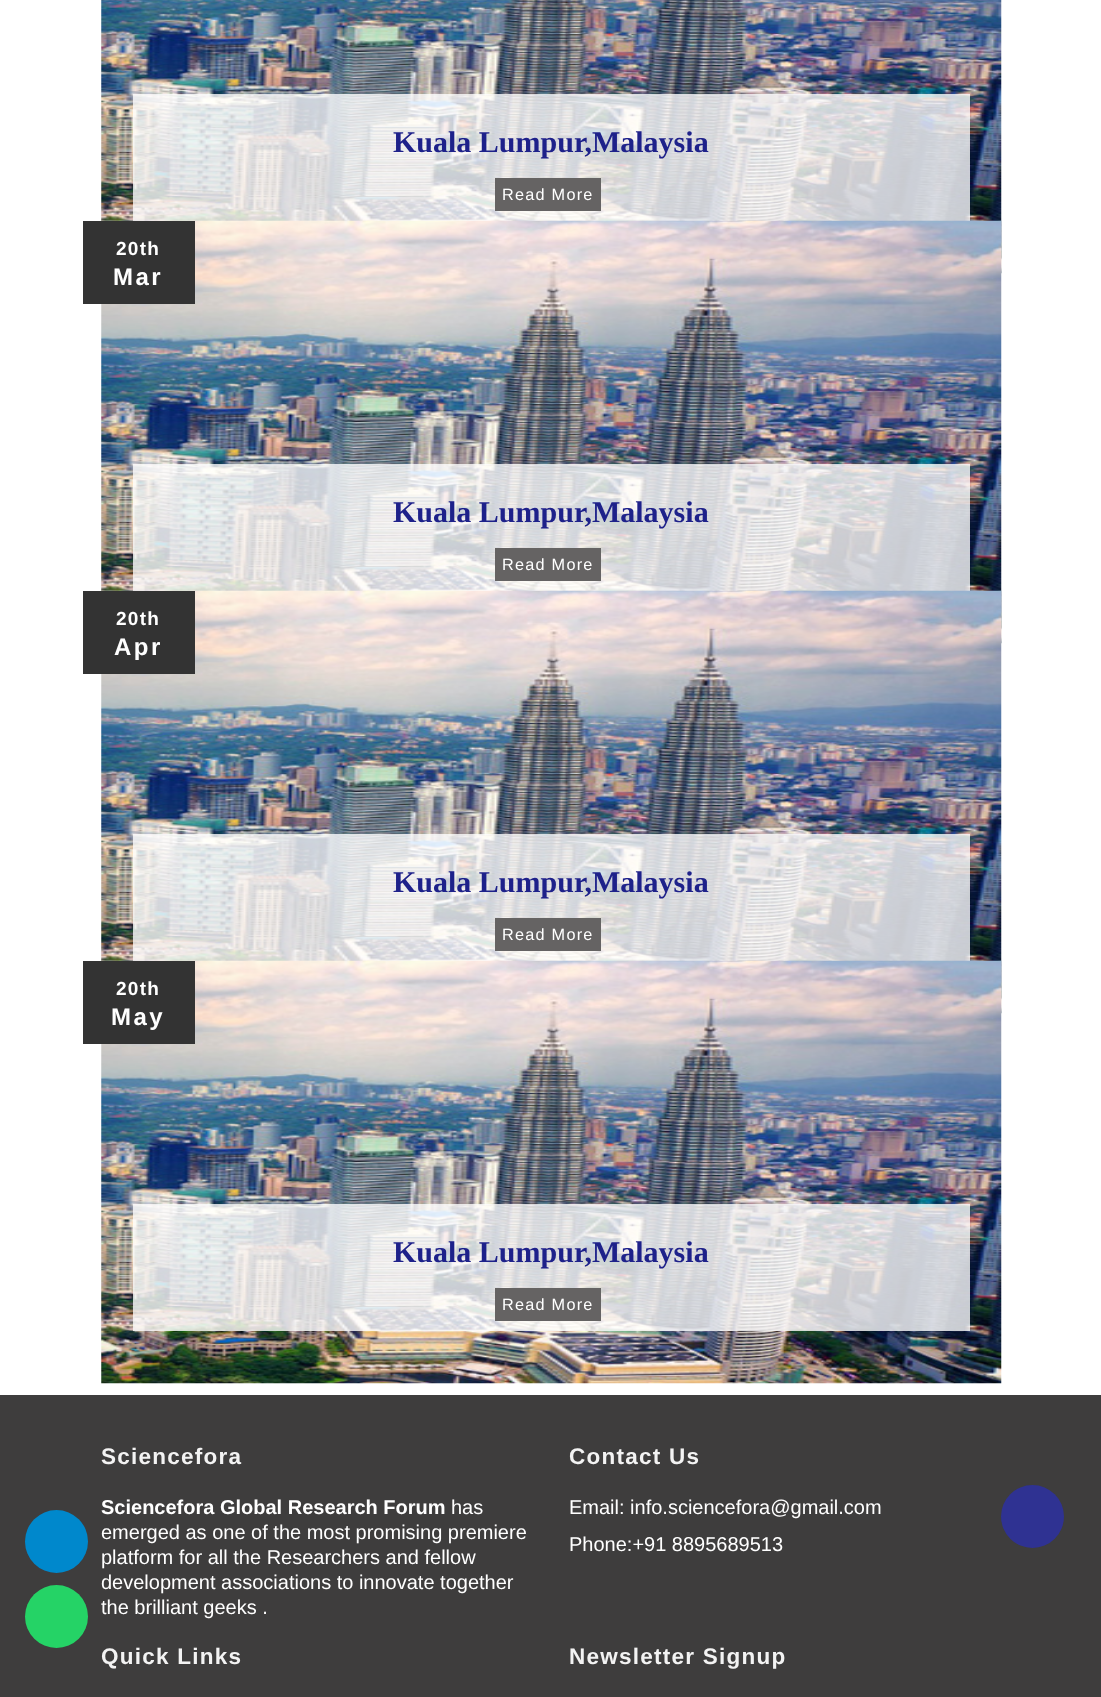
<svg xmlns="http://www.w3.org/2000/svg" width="1101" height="1697">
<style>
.a{font:bold 30px Liberation Serif;fill:#1e218a}
.b{font:16.25px Liberation Sans;letter-spacing:1.25px;fill:#fff}
.c{font:bold 19px Liberation Sans;letter-spacing:1.25px;fill:#fff}
.d{font:bold 24px Liberation Sans;letter-spacing:2.5px;fill:#fff}
.e{font:bold 22.5px Liberation Sans;letter-spacing:1.25px;fill:#f3f3f3}
.f{font:bold 20px Liberation Sans;fill:#fff}
.g{font:20px Liberation Sans;fill:#fff}
</style>
<rect width="100%" height="100%" fill="#fff"/>
<image href="1.png" x="101" y="0" width="901" height="274"/>
<path fill="#ffffffc9" d="M133 94h837v127H133z"/>
<path fill="#656363" d="M495 178h106v33H495z"/>
<image href="2.png" x="101" y="220" width="901" height="424"/>
<path fill="#333" d="M83 221h112v83H83z"/>
<path fill="#ffffffc9" d="M133 464h837v127H133z"/>
<path fill="#656363" d="M495 548h106v33H495z"/>
<image href="2.png" x="101" y="590" width="901" height="424"/>
<path fill="#333" d="M83 591h112v83H83z"/>
<path fill="#ffffffc9" d="M133 834h837v127H133z"/>
<path fill="#656363" d="M495 918h106v33H495z"/>
<image href="3.png" x="101" y="960" width="901" height="424"/>
<path fill="#333" d="M83 961h112v83H83z"/>
<path fill="#ffffffc9" d="M133 1204h837v127H133z"/>
<path fill="#656363" d="M495 1288h106v33H495z"/>
<path fill="#3e3d3d" d="M0 1395h1101v302H0z"/>
<circle fill="#08c" cx="56.5" cy="1541.5" r="31.5"/>
<circle fill="#2f3292" cx="1032.5" cy="1516.5" r="31.5"/>
<circle fill="#25d366" cx="56.5" cy="1616.5" r="31.5"/>
<text class="a" x="393" y="152">Kuala Lumpur,Malaysia</text>
<text class="b" x="502" y="200">Read More</text>
<text class="c" x="116" y="255">20th</text>
<text class="d" x="113" y="285">Mar</text>
<text class="a" x="393" y="522">Kuala Lumpur,Malaysia</text>
<text class="b" x="502" y="570">Read More</text>
<text class="c" x="116" y="625">20th</text>
<text class="d" x="114" y="655">Apr</text>
<text class="a" x="393" y="892">Kuala Lumpur,Malaysia</text>
<text class="b" x="502" y="940">Read More</text>
<text class="c" x="116" y="995">20th</text>
<text class="d" x="111" y="1025">May</text>
<text class="a" x="393" y="1262">Kuala Lumpur,Malaysia</text>
<text class="b" x="502" y="1310">Read More</text>
<text class="e" x="101" y="1464">Sciencefora</text>
<text class="f" x="101" y="1514">Sciencefora Global Research Forum</text>
<text class="g" x="451" y="1514">has</text>
<text class="g" x="101" y="1539">emerged as one of the most promising premiere</text>
<text class="g" x="101" y="1564">platform for all the Researchers and fellow</text>
<text class="g" x="101" y="1589">development associations to innovate together</text>
<text class="g" x="101" y="1614">the brilliant geeks .</text>
<text class="e" x="569" y="1464">Contact Us</text>
<text class="g" x="569" y="1514">Email: info.sciencefora@gmail.com</text>
<text class="g" x="569" y="1551">Phone:+91 8895689513</text>
<text class="e" x="101" y="1664">Quick Links</text>
<text class="e" x="569" y="1664">Newsletter Signup</text>
</svg>
